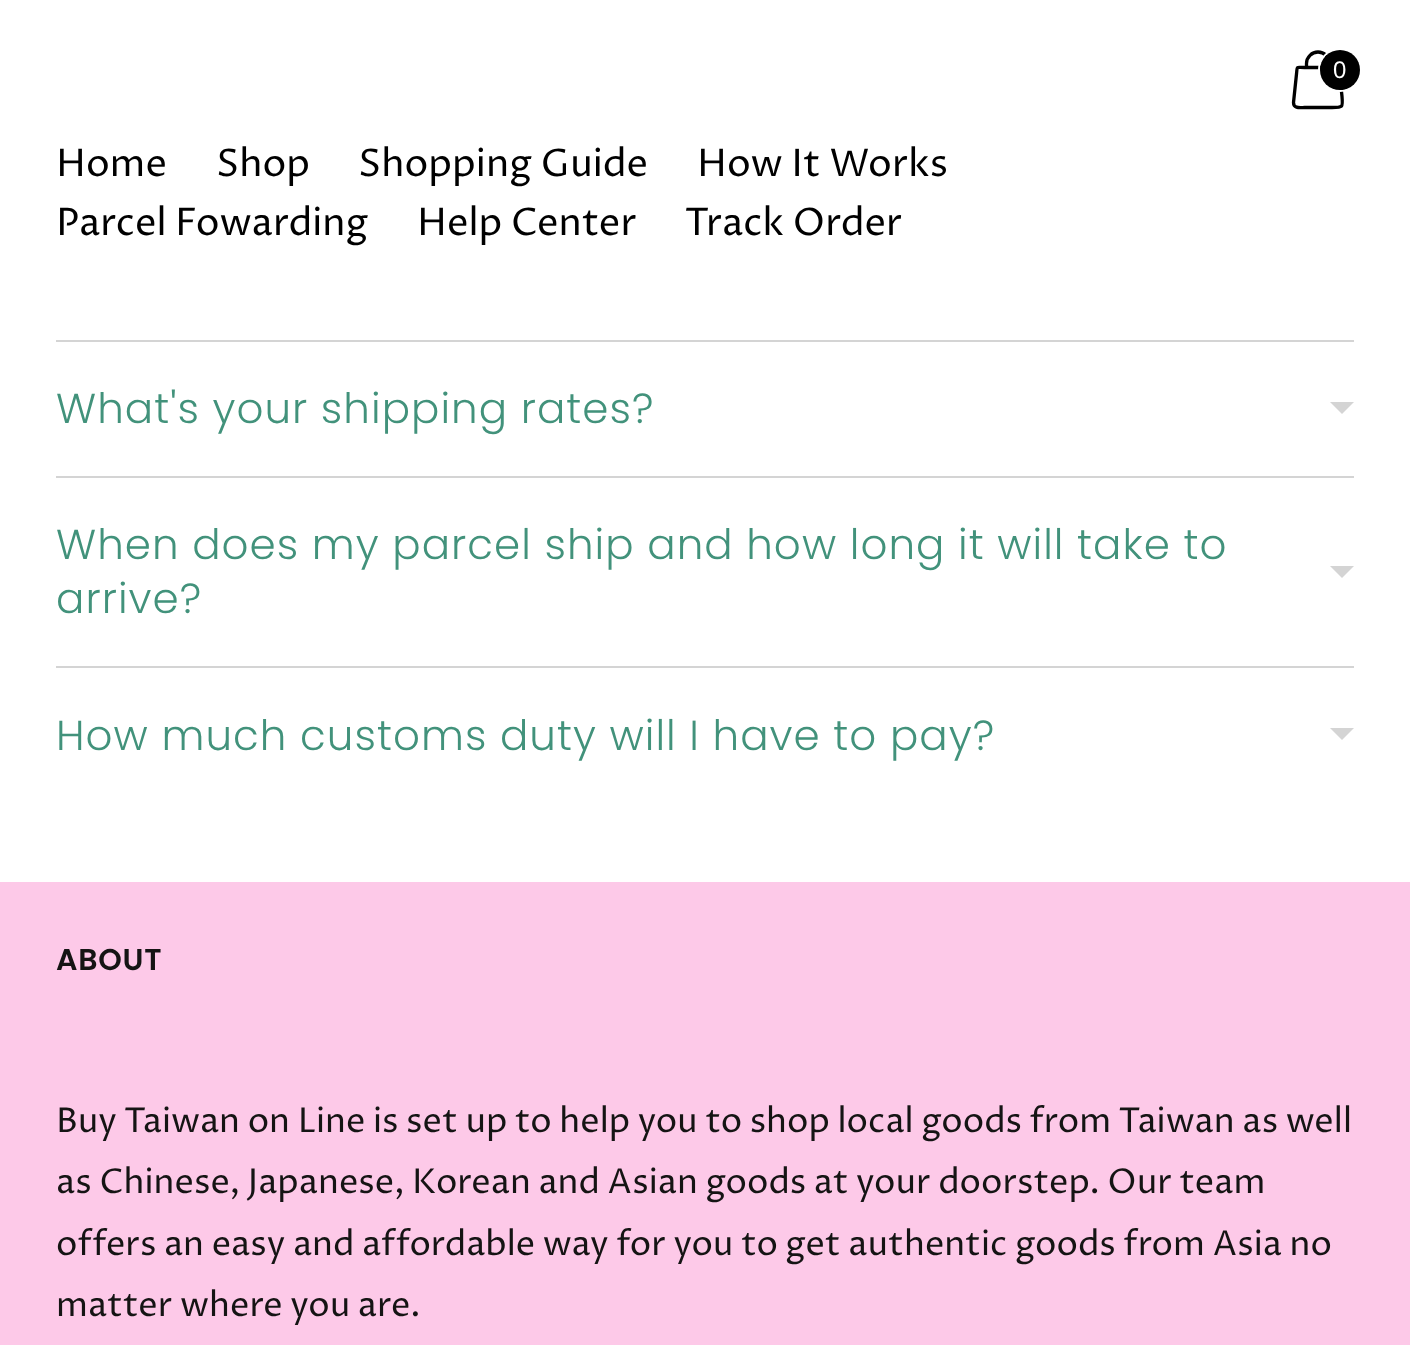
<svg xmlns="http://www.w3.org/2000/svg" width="1410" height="1345">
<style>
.a{font:24px Liberation Sans;fill:#fff}
.b{font:38px Proza Libre;fill:#000}
.c{font:300 42px Poppins;letter-spacing:1.05px;fill:#42927b}
.d{font:600 30px Poppins;letter-spacing:0.75px;fill:#151414}
.e{font:34.2px Proza Libre;fill:#151414}
</style>
<rect width="100%" height="100%" fill="#fff"/>
<path fill="none" stroke="#000" stroke-width="3.3" stroke-linecap="round" stroke-linejoin="round" d="M1339 68l3 28.5c1 11 1 11-10 11h-27.5c-4 0-11 1.5-11-5l3-28.5c1-8.5-1-6.5 8-6.5h13.5c11.5 0 21-1 21 .5zm-9.5-.5v-4c0-6.5-5.5-11.5-11.5-11.5c-6 0-11.5 5-11.5 11.5v4"/>
<circle fill="none" stroke="#fff" stroke-width="2" cx="1340" cy="70" r="21"/>
<circle fill="#000" cx="1340" cy="70" r="20"/>
<path fill="#d4d4d4" d="M56 340h1298v2H56z"/>
<path fill="#d4d4d4" d="M1330 402l12 12l12-12z"/>
<path fill="#d4d4d4" d="M56 476h1298v2H56z"/>
<path fill="#d4d4d4" d="M1330 566l12 12l12-12z"/>
<path fill="#d4d4d4" d="M56 666h1298v2H56z"/>
<path fill="#d4d4d4" d="M1330 728l12 12l12-12z"/>
<path fill="#fdc9e8" d="M0 882h1410v463H0z"/>
<text class="a" x="1333" y="78">0</text>
<text class="b" x="56" y="176">Home</text>
<text class="b" x="216" y="176">Shop</text>
<text class="b" x="358" y="176">Shopping Guide</text>
<text class="b" x="697" y="176">How It Works</text>
<text class="b" x="56" y="235">Parcel Fowarding</text>
<text class="b" x="417" y="235">Help Center</text>
<text class="b" x="685" y="235">Track Order</text>
<text class="c" x="56" y="423">What's your shipping rates?</text>
<text class="c" x="56" y="559">When does my parcel ship and how long it will take to</text>
<text class="c" x="56" y="613">arrive?</text>
<text class="c" x="56" y="750">How much customs duty will I have to pay?</text>
<text class="d" x="56" y="970">ABOUT</text>
<text class="e" x="56" y="1132">Buy Taiwan on Line is set up to help you to shop local goods from Taiwan as well</text>
<text class="e" x="56" y="1193">as Chinese, Japanese, Korean and Asian goods at your doorstep. Our team</text>
<text class="e" x="56" y="1255">offers an easy and affordable way for you to get authentic goods from Asia no</text>
<text class="e" x="56" y="1316">matter where you are.</text>
</svg>
